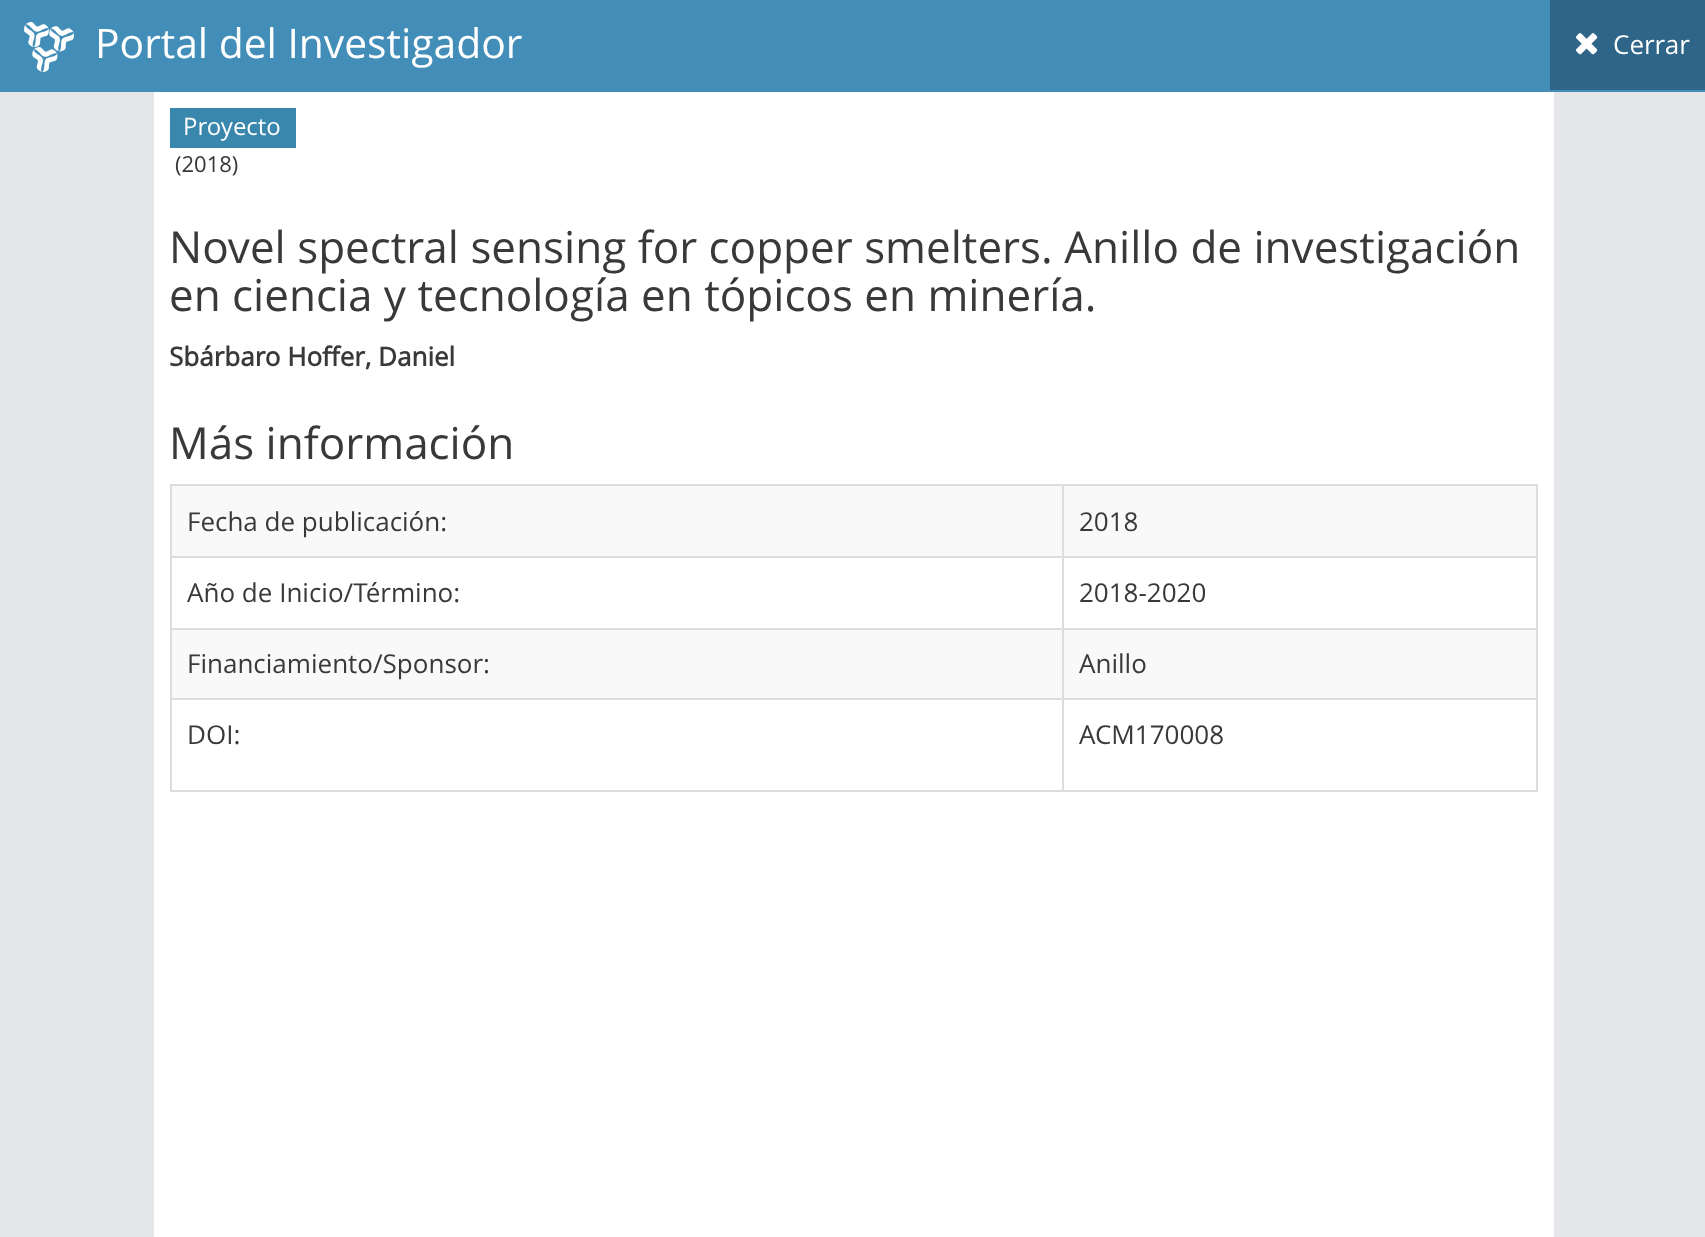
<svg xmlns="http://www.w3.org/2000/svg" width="1705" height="1237">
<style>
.a{font:40.75px Open Sans;fill:#fff}
.b{font:26px Open Sans;fill:#fff}
.c{font:24px Open Sans;fill:#fff}
.d{font:22px Open Sans;fill:#393939}
.e{font:44px Open Sans;fill:#393939}
.f{font:bold 26px Open Sans;fill:#393939}
.g{font:26px Open Sans;fill:#393939}
</style>
<rect width="100%" height="100%" fill="#e4e6e9"/>
<path fill="#438eb9" d="M0 0h1705v92H0z"/>
<image href="1.png" x="24" y="22" width="50" height="50"/>
<path fill="#2e6589" d="M1550 0h155v90H1550z"/>
<image href="2.png" x="1576" y="33" width="22" height="22"/>
<path fill="#fff" d="M154 92h1400v1145H154z"/>
<path fill="#3a87ad" d="M170 108h126v40H170z"/>
<path fill="#ddd" d="M170 484h1368v2H170z"/>
<path fill="#ddd" d="M1536 484h2v308H1536z"/>
<path fill="#ddd" d="M170 790h1368v2H170z"/>
<path fill="#ddd" d="M170 484h2v308H170z"/>
<path fill="#f9f9f9" d="M172 486h1364v70H172z"/>
<path fill="#ddd" d="M1062 556h476v2H1062z"/>
<path fill="#ddd" d="M1062 628h476v2H1062z"/>
<path fill="#f9f9f9" d="M172 630h1364v68H172z"/>
<path fill="#ddd" d="M1062 698h476v2H1062z"/>
<path fill="#ddd" d="M1062 698h2v94H1062z"/>
<path fill="#ddd" d="M170 698h894v2H170z"/>
<path fill="#ddd" d="M1062 628h2v72H1062z"/>
<path fill="#ddd" d="M170 628h894v2H170z"/>
<path fill="#ddd" d="M1062 556h2v74H1062z"/>
<path fill="#ddd" d="M170 556h894v2H170z"/>
<path fill="#ddd" d="M1062 484h2v74H1062z"/>
<text class="a" x="95" y="58">Portal del Investigador</text>
<text class="b" x="1613" y="54">Cerrar</text>
<text class="c" x="183" y="135">Proyecto</text>
<text class="d" x="175" y="172">(2018)</text>
<text class="e" x="169" y="263">Novel spectral sensing for copper smelters. Anillo de investigación</text>
<text class="e" x="169" y="311">en ciencia y tecnología en tópicos en minería.</text>
<text class="f" x="169" y="366">Sbárbaro Hoffer, Daniel</text>
<text class="e" x="169" y="459">Más información</text>
<text class="g" x="187" y="531">Fecha de publicación:</text>
<text class="g" x="1079" y="531">2018</text>
<text class="g" x="187" y="602">Año de Inicio/Término:</text>
<text class="g" x="1079" y="602">2018-2020</text>
<text class="g" x="187" y="673">Financiamiento/Sponsor:</text>
<text class="g" x="1079" y="673">Anillo</text>
<text class="g" x="187" y="744">DOI:</text>
<text class="g" x="1079" y="744">ACM170008</text>
</svg>
